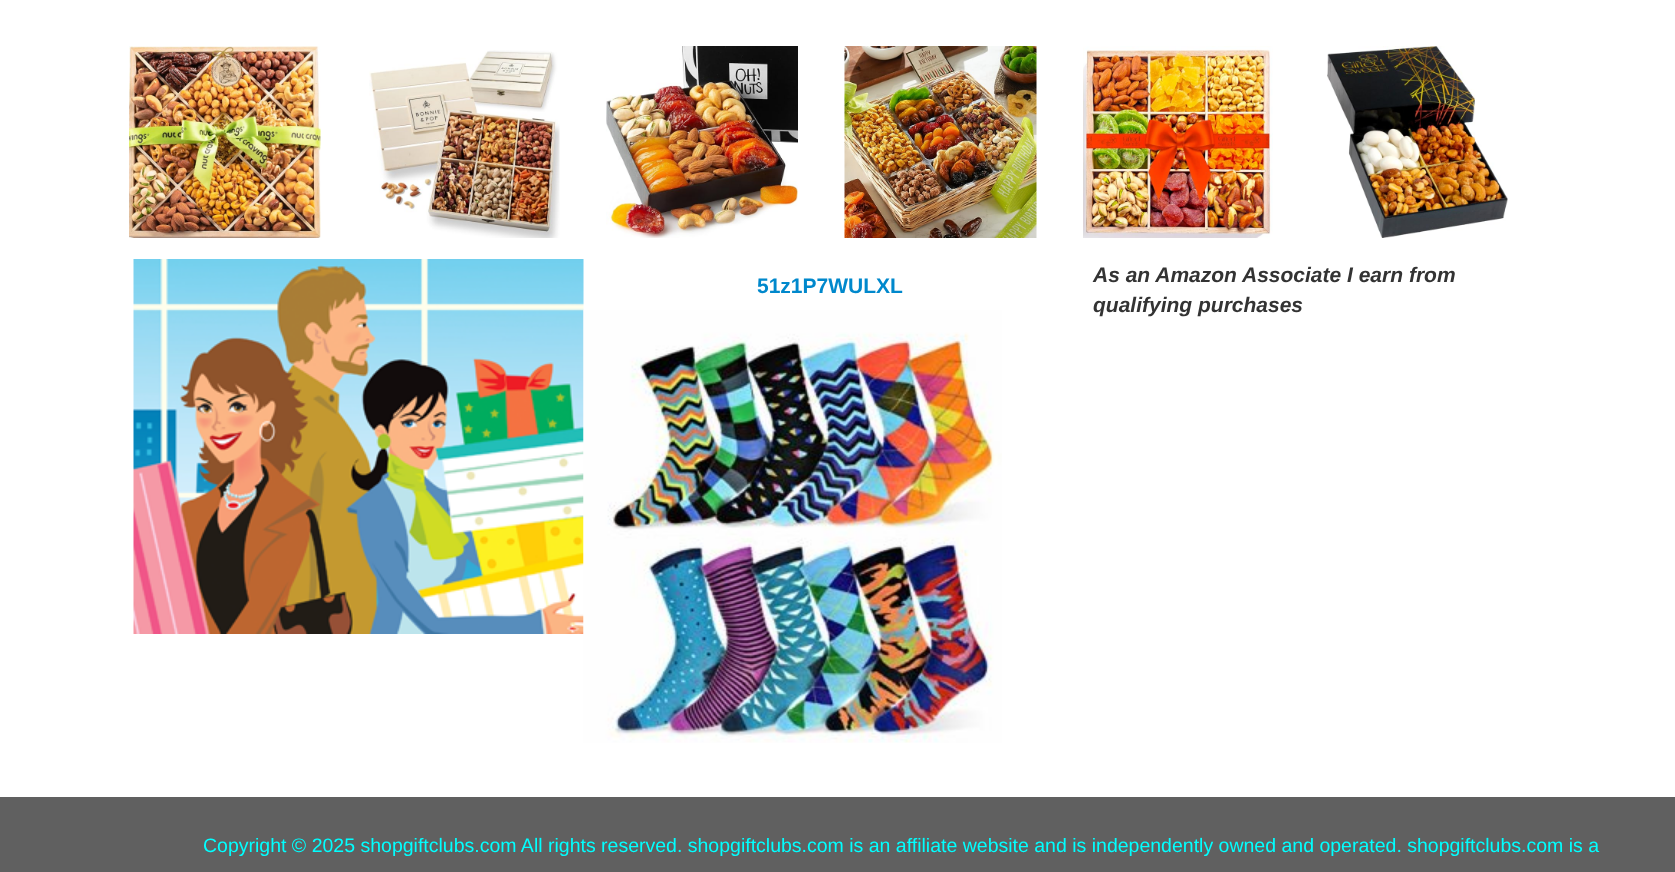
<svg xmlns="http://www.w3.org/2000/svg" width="1675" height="872">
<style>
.a{font:bold 21px Liberation Sans;fill:#08c}
.b{font:italic bold 21px Liberation Sans;fill:#333}
.c{font:19.5px Liberation Sans;fill:#01ffff}
</style>
<rect width="100%" height="100%" fill="#fff"/>
<image href="1.png" x="129" y="46" width="192" height="192"/>
<image href="2.png" x="369" y="50" width="191" height="188"/>
<image href="3.png" x="606" y="46" width="192" height="192"/>
<image href="4.png" x="844" y="46" width="193" height="192"/>
<image href="5.png" x="1083" y="46" width="190" height="192"/>
<image href="6.png" x="1327" y="46" width="181" height="192"/>
<image href="7.png" x="133" y="259" width="451" height="375"/>
<image href="8.png" x="583" y="310" width="419" height="433"/>
<path fill="#606060" d="M0 797h1675v75H0z"/>
<text class="a" x="757" y="293">51z1P7WULXL</text>
<text class="b" x="1093" y="282">As an Amazon Associate I earn from</text>
<text class="b" x="1093" y="312">qualifying purchases</text>
<text class="c" x="203" y="852">Copyright © 2025 shopgiftclubs.com All rights reserved. shopgiftclubs.com is an affiliate website and is independently owned and operated. shopgiftclubs.com is a</text>
</svg>
